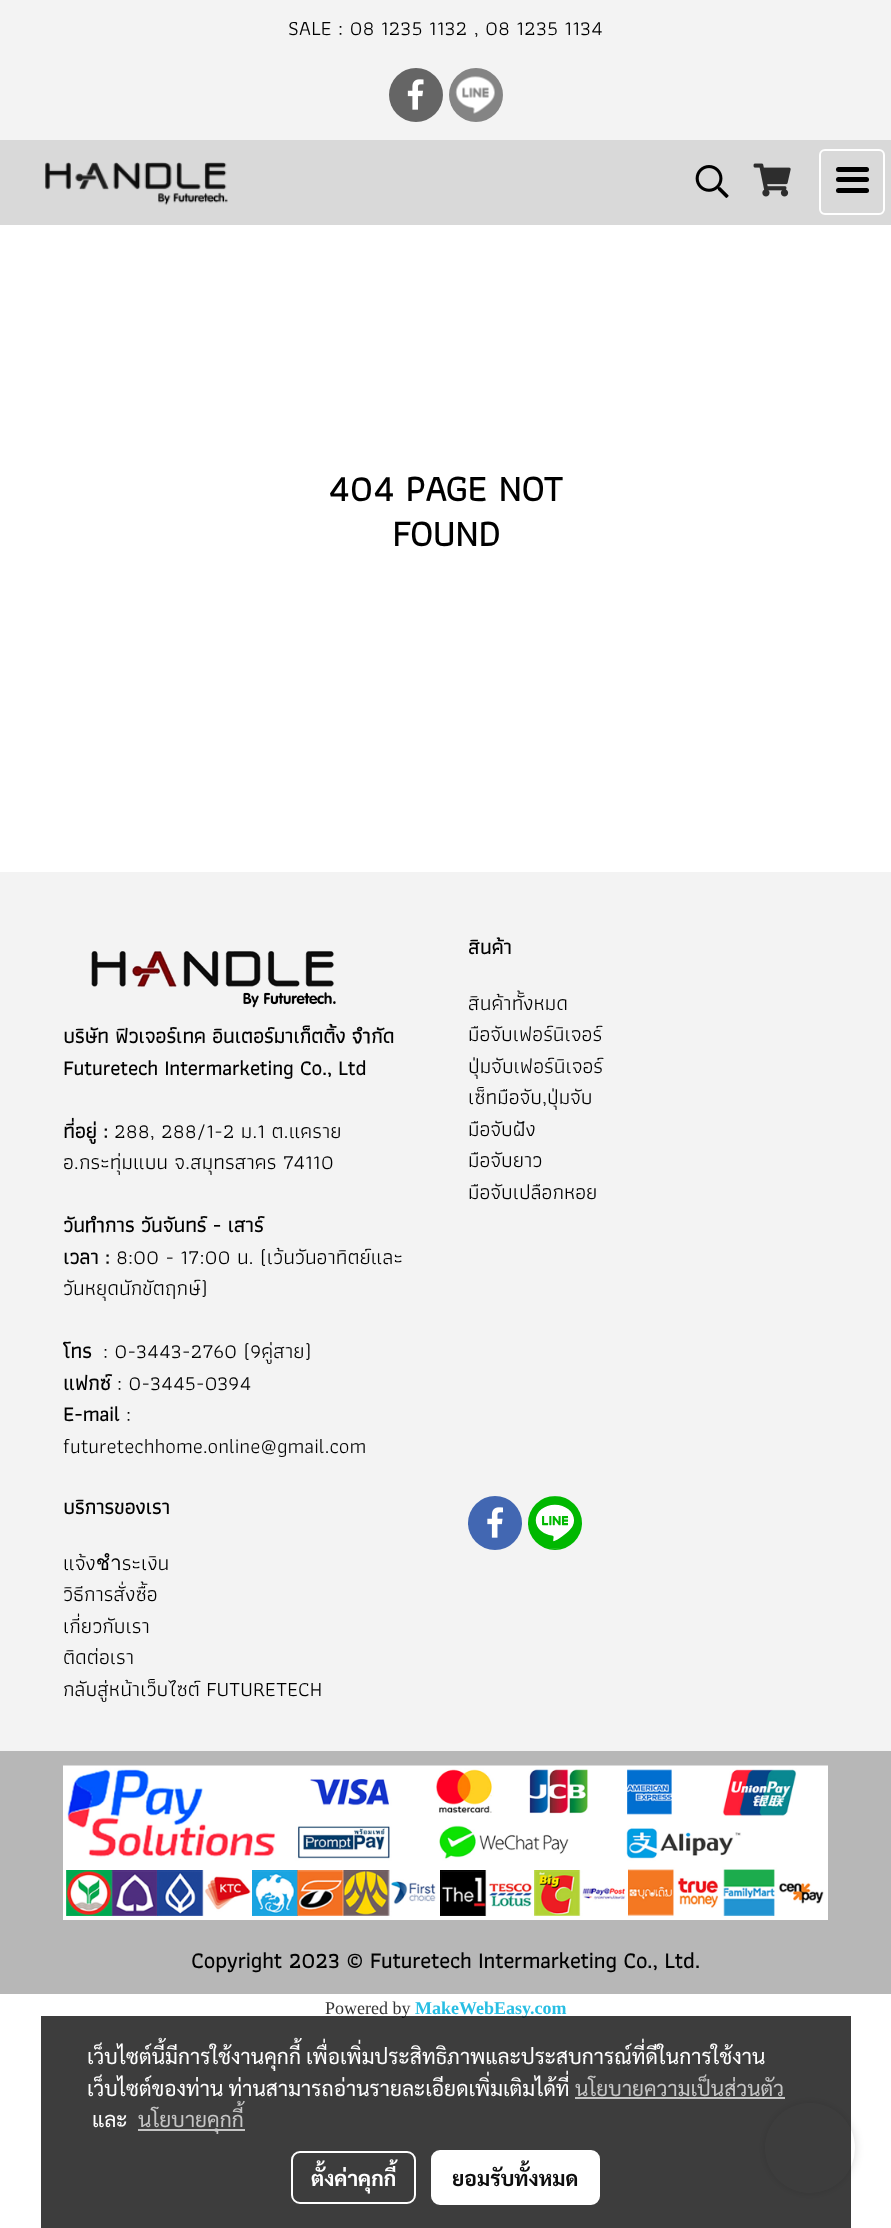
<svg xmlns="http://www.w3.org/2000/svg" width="891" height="2228">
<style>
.a{font:21px Athiti;fill:#000}
.b{font:bold 37.5px Athiti;fill:#000}
.c{font:bold 21px Athiti;fill:#000}
.d{font:bold 22.5px Athiti;fill:#000}
.e{font:18px Liberation Serif;fill:#353535}
.f{font:bold 18px Liberation Serif;fill:#28bee3}
.g{font:21px Sarabun;fill:#fff}
.h{font:21px Sarabun;fill:#c5c5c5}
.i{font:bold 21px Sarabun;fill:#fff}
.j{font:bold 21px Sarabun;fill:#0d0d0d}
</style>
<rect width="100%" height="100%" fill="#fff"/>
<path fill="#d9d9d9" d="M0 140h891v85H0z"/>
<path fill="#f3f3f3" d="M0 0h891v140H0z"/>
<circle fill="#656565" cx="416" cy="95" r="27"/>
<image href="1.png" x="407" y="79" width="17" height="31"/>
<circle fill="#848484" cx="476" cy="95" r="27"/>
<image href="2.png" x="455" y="76" width="40" height="38"/>
<image href="3.png" x="45" y="162" width="183" height="43"/>
<image href="4.png" x="695" y="165" width="34" height="33"/>
<image href="5.png" x="753" y="163" width="38" height="34"/>
<rect fill="none" stroke="#fff" stroke-width="2" x="820" y="150" width="64" height="64" rx="5"/>
<rect fill="#000" x="836" y="177" width="33" height="5" rx="2.5"/>
<rect fill="#000" x="836" y="167" width="33" height="5" rx="2.5"/>
<rect fill="#000" x="836" y="188" width="33" height="5" rx="2.5"/>
<path fill="#f3f3f3" d="M0 872h891v879H0z"/>
<image href="6.png" x="91" y="951" width="245" height="57"/>
<circle fill="#4267b2" cx="495" cy="1523" r="27"/>
<image href="7.png" x="487" y="1507" width="16" height="31"/>
<circle fill="#00b800" cx="555" cy="1523" r="27"/>
<image href="8.png" x="535" y="1496" width="39" height="53"/>
<path fill="#b7b7b7" d="M0 1751h891v243H0z"/>
<image href="9.png" x="63" y="1765" width="765" height="155"/>
<rect fill="#00000024" filter="blur(5px)" x="765" y="2103" width="90" height="90" rx="45"/>
<circle fill="#fff" cx="810" cy="2148" r="45"/>
<text class="a" x="288" y="35">SALE : 08 1235 1132 , 08 1235 1134</text>
<text class="b" x="328" y="501">404 PAGE NOT</text>
<text class="b" x="392" y="546">FOUND</text>
<text class="c" x="63" y="1043">บริษัท ฟิวเจอร์เทค อินเตอร์มาเก็ตติ้ง จำกัด</text>
<text class="c" x="63" y="1075">Futuretech Intermarketing Co., Ltd</text>
<text class="c" x="63" y="1138">ที่อยู่ :</text>
<text class="a" x="114" y="1138">288, 288/1-2 ม.1 ต.แคราย</text>
<text class="a" x="63" y="1169">อ.กระทุ่มแบน จ.สมุทรสาคร 74110</text>
<text class="c" x="63" y="1232">วันทำการ วันจันทร์ - เสาร์</text>
<text class="c" x="63" y="1264">เวลา :</text>
<text class="a" x="116" y="1264">8:00 - 17:00 น. (เว้นวันอาทิตย์และ</text>
<text class="a" x="63" y="1295">วันหยุดนักขัตฤกษ์)</text>
<text class="c" x="63" y="1358">โทร</text>
<text class="a" x="103" y="1358">: 0-3443-2760 (9คู่สาย)</text>
<text class="c" x="63" y="1390">แฟกซ์</text>
<text class="a" x="117" y="1390">: 0-3445-0394</text>
<text class="c" x="63" y="1421">E-mail</text>
<text class="a" x="126" y="1421">:</text>
<text class="a" x="63" y="1453">futuretechhome.online@gmail.com</text>
<text class="c" x="468" y="954">สินค้า</text>
<text class="a" x="468" y="1010">สินค้าทั้งหมด</text>
<text class="a" x="468" y="1041">มือจับเฟอร์นิเจอร์</text>
<text class="a" x="468" y="1073">ปุ่มจับเฟอร์นิเจอร์</text>
<text class="a" x="468" y="1104">เซ็ทมือจับ,ปุ่มจับ</text>
<text class="a" x="468" y="1136">มือจับฝัง</text>
<text class="a" x="468" y="1167">มือจับยาว</text>
<text class="a" x="468" y="1199">มือจับเปลือกหอย</text>
<text class="c" x="63" y="1514">บริการของเรา</text>
<text class="a" x="63" y="1570">แจ้งชำระเงิน</text>
<text class="a" x="63" y="1601">วิธีการสั่งซื้อ</text>
<text class="a" x="63" y="1633">เกี่ยวกับเรา</text>
<text class="a" x="63" y="1664">ติดต่อเรา</text>
<text class="a" x="63" y="1696">กลับสู่หน้าเว็บไซต์ FUTURETECH</text>
<text class="d" x="191" y="1968">Copyright 2023 © Futuretech Intermarketing Co., Ltd.</text>
<text class="e" x="325" y="2014">Powered by</text>
<text class="f" x="415" y="2014">MakeWebEasy.com</text>
<path fill="#000000c2" d="M41 2016h810v212H41z"/>
<text class="g" x="87" y="2064">เว็บไซต์นี้มีการใช้งานคุกกี้ เพื่อเพิ่มประสิทธิภาพและประสบการณ์ที่ดีในการใช้งาน</text>
<text class="g" x="87" y="2096">เว็บไซต์ของท่าน ท่านสามารถอ่านรายละเอียดเพิ่มเติมได้ที่</text>
<text class="h" x="575" y="2096">นโยบายความเป็นส่วนตัว</text>
<path fill="#c5c5c5" d="M575 2097h210v2H575z"/>
<text class="g" x="92" y="2127">และ</text>
<path fill="#c5c5c5" d="M138 2129h107v2H138z"/>
<text class="h" x="138" y="2127">นโยบายคุกกี้</text>
<rect fill="none" stroke="#fff" stroke-width="2" x="292" y="2152" width="123" height="51" rx="8"/>
<text class="i" x="311" y="2186">ตั้งค่าคุกกี้</text>
<rect fill="#fff" stroke="#fff" stroke-width="3" x="432.5" y="2151.5" width="166" height="52" rx="7.5"/>
<text class="j" x="452" y="2186">ยอมรับทั้งหมด</text>
</svg>
